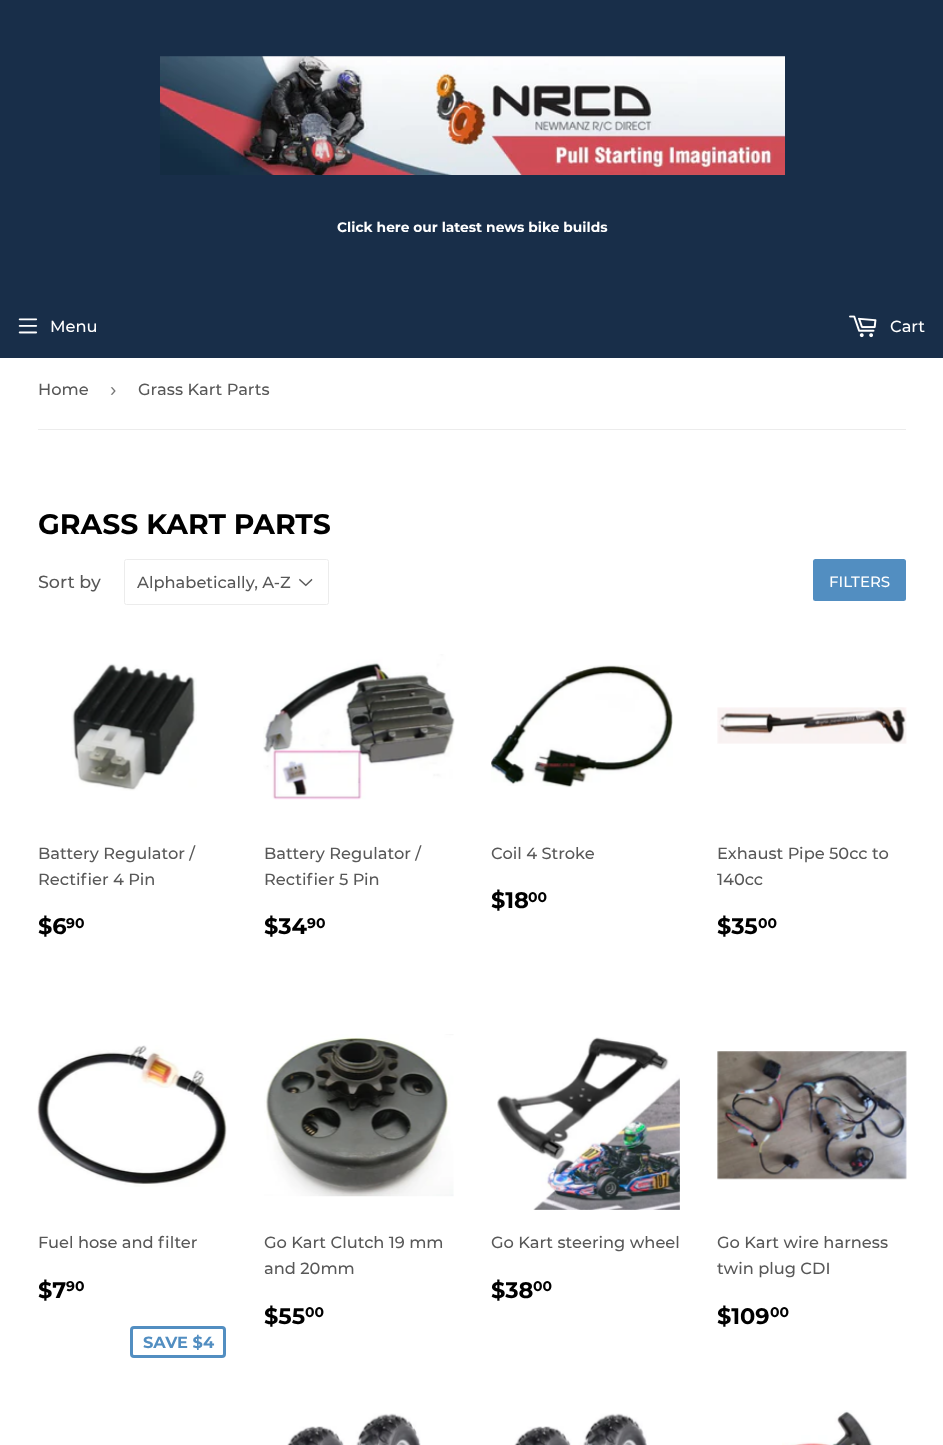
<svg xmlns="http://www.w3.org/2000/svg" width="943" height="1445">
<style>
.a{font:bold 13.8px Montserrat;fill:#fff}
.b{font:500 16.25px Montserrat;fill:#fff}
.c{font:500 16.25px Montserrat;fill:#585858}
.d{font:19px Liberation Sans;fill:#767676}
.e{font:bold 28.25px Montserrat;fill:#000}
.f{font:500 17.5px Montserrat;fill:#585858}
.g{font:500 15px Montserrat;fill:#fff}
.h{font:bold 22.5px Montserrat;fill:#000}
.i{font:bold 14px Montserrat;fill:#000}
.j{font:bold 16.25px Montserrat;fill:#528ec1}
</style>
<rect width="100%" height="100%" fill="#fff"/>
<path fill="#182e49" d="M0 0h943v358H0z"/>
<image href="1.png" x="160" y="56" width="625" height="119"/>
<image href="2.png" x="18" y="318" width="20" height="16"/>
<image href="3.png" x="849" y="315" width="28" height="23"/>
<path fill="#ececec" d="M38 429h868v1H38z"/>
<image href="4.png" x="299" y="578" width="14" height="9"/>
<rect fill="none" stroke="#ececec" x="124.5" y="559.5" width="204" height="45" rx="2"/>
<rect fill="#528ec1" x="813" y="559" width="93" height="42" rx="2.5"/>
<image href="5.png" x="71" y="663" width="126" height="128"/>
<image href="6.png" x="263" y="654" width="192" height="146"/>
<image href="7.png" x="491" y="665" width="182" height="123"/>
<image href="8.png" x="717" y="707" width="190" height="37"/>
<image href="9.png" x="37" y="1045" width="190" height="142"/>
<rect fill="none" stroke="#528ec1" stroke-width="3" x="131.5" y="1327.5" width="93" height="29" rx="2.5"/>
<image href="10.png" x="264" y="1034" width="190" height="163"/>
<image href="11.png" x="497" y="1037" width="183" height="173"/>
<image href="12.png" x="717" y="1051" width="190" height="129"/>
<image href="13.png" x="287" y="1413" width="134" height="32"/>
<image href="14.png" x="514" y="1413" width="133" height="32"/>
<image href="15.png" x="782" y="1410" width="91" height="35"/>
<text class="a" x="337" y="232">Click here our latest news bike builds</text>
<text class="b" x="50" y="332">Menu</text>
<text class="b" x="890" y="332">Cart</text>
<text class="c" x="38" y="395">Home</text>
<text class="d" x="110" y="396">›</text>
<text class="c" x="138" y="395">Grass Kart Parts</text>
<text class="e" x="38" y="534">GRASS KART PARTS</text>
<text class="f" x="38" y="588">Sort by</text>
<text class="c" x="137" y="588">Alphabetically, A-Z</text>
<text class="g" x="829" y="587">FILTERS</text>
<text class="c" x="38" y="859">Battery Regulator /</text>
<text class="c" x="38" y="885">Rectifier 4 Pin</text>
<text class="h" x="38" y="934">$6</text>
<text class="i" x="66" y="928">90</text>
<text class="c" x="264" y="859">Battery Regulator /</text>
<text class="c" x="264" y="885">Rectifier 5 Pin</text>
<text class="h" x="264" y="934">$34</text>
<text class="i" x="307" y="928">90</text>
<text class="c" x="491" y="859">Coil 4 Stroke</text>
<text class="h" x="491" y="908">$18</text>
<text class="i" x="528" y="902">00</text>
<text class="c" x="717" y="859">Exhaust Pipe 50cc to</text>
<text class="c" x="717" y="885">140cc</text>
<text class="h" x="717" y="934">$35</text>
<text class="i" x="758" y="928">00</text>
<text class="c" x="38" y="1248">Fuel hose and filter</text>
<text class="h" x="38" y="1298">$7</text>
<text class="i" x="66" y="1291">90</text>
<text class="j" x="143" y="1348">SAVE $4</text>
<text class="c" x="264" y="1248">Go Kart Clutch 19 mm</text>
<text class="c" x="264" y="1274">and 20mm</text>
<text class="h" x="264" y="1324">$55</text>
<text class="i" x="305" y="1317">00</text>
<text class="c" x="491" y="1248">Go Kart steering wheel</text>
<text class="h" x="491" y="1298">$38</text>
<text class="i" x="533" y="1291">00</text>
<text class="c" x="717" y="1248">Go Kart wire harness</text>
<text class="c" x="717" y="1274">twin plug CDI</text>
<text class="h" x="717" y="1324">$109</text>
<text class="i" x="770" y="1317">00</text>
</svg>
